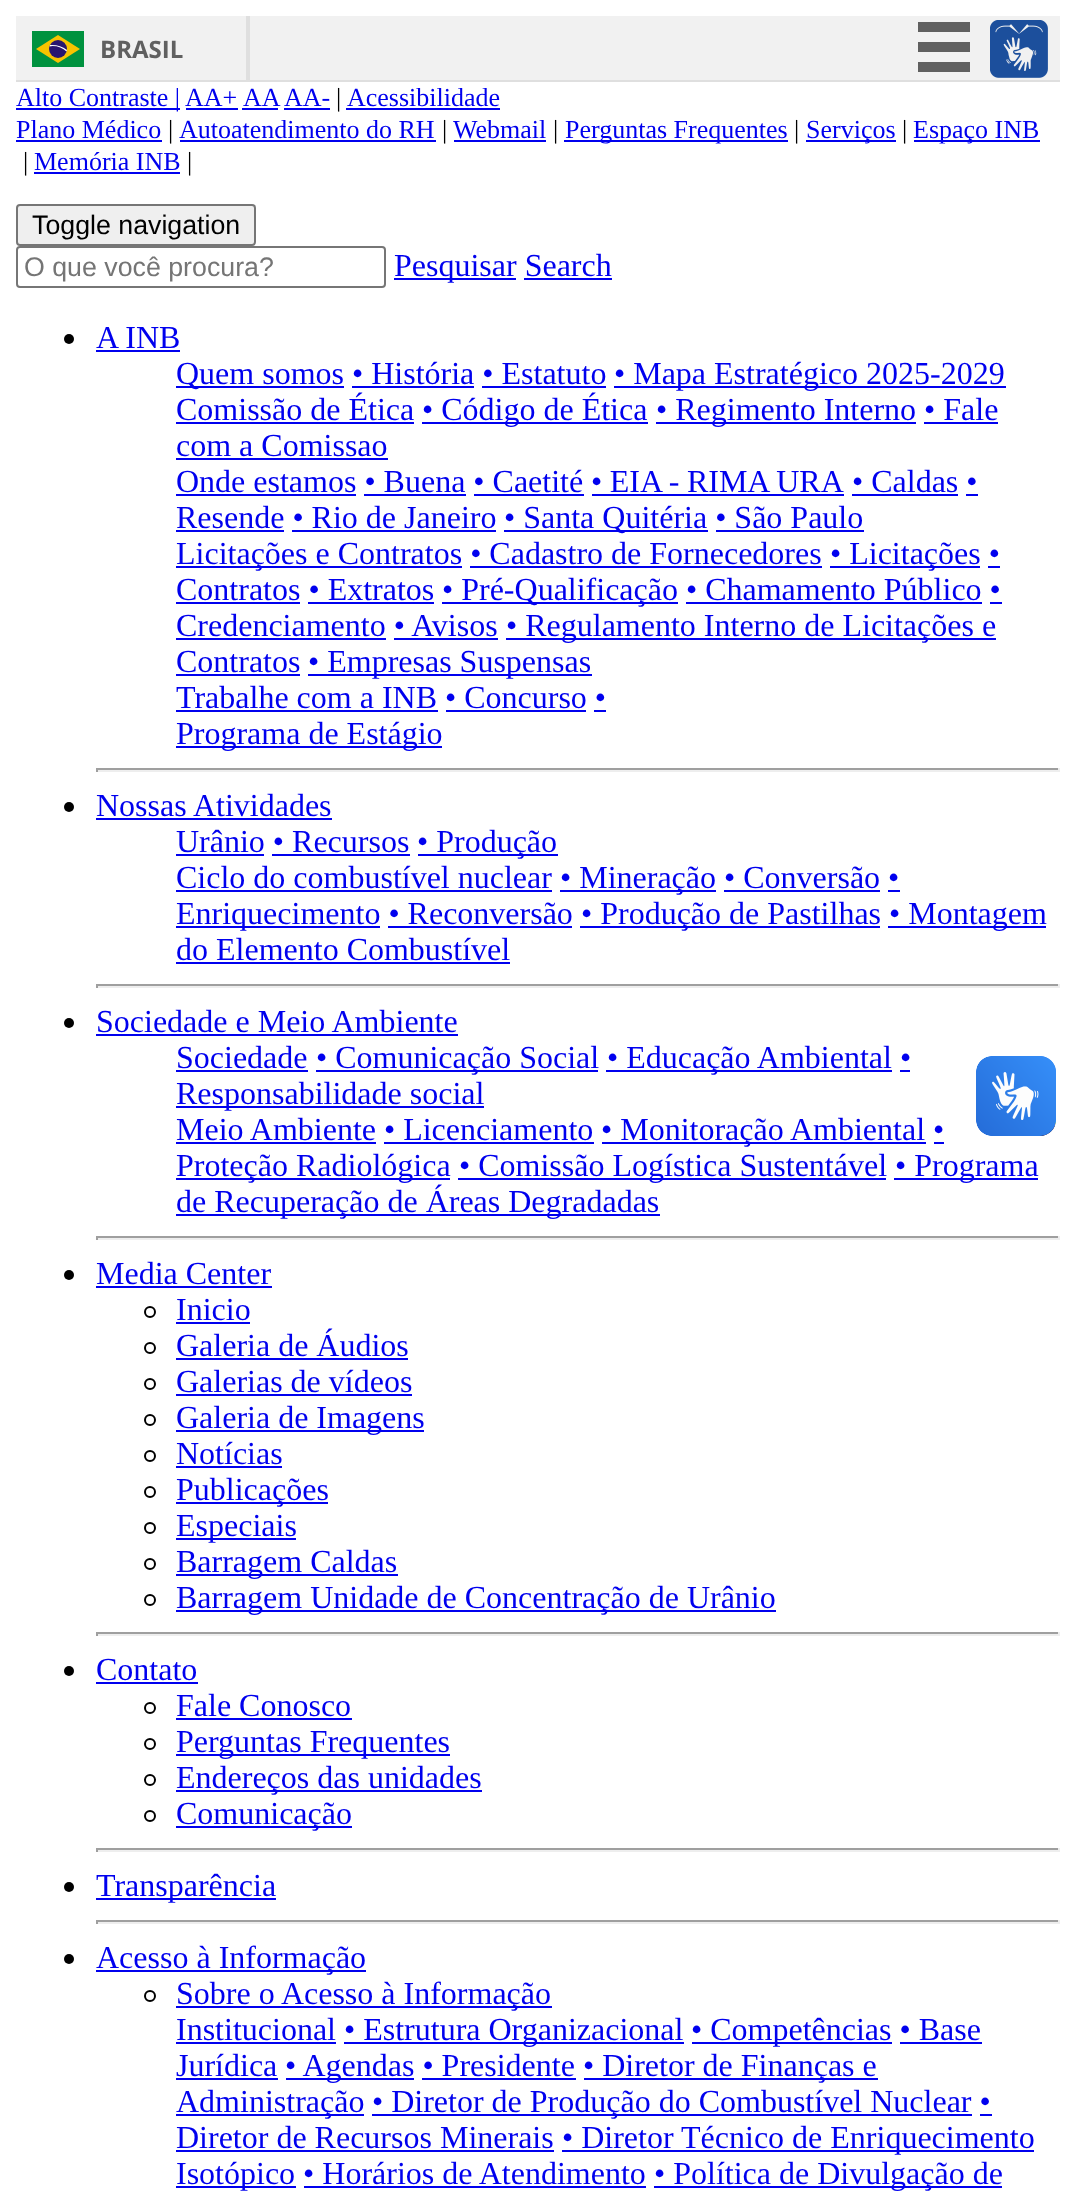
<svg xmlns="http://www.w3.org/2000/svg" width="1075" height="2191">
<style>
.a{font:bold 24px Open Sans;fill:#606060}
.b{font:26px Liberation Serif;fill:#00e}
.c{font:26px Liberation Serif;fill:#000}
.d{font:26.75px Liberation Sans;fill:#000}
.e{font:26.75px Liberation Sans;fill:#757575}
.f{font:32px Liberation Serif;fill:#00e}
</style>
<rect width="100%" height="100%" fill="#fff"/>
<path fill="#f1f1f1" d="M16 16h1044v64H16z"/>
<path fill="#dfdfdf" d="M16 80h1044v2H16z"/>
<path fill="#dfdfdf" d="M246 16h4v64H246z"/>
<path fill="#00923f" d="M32 31h52v36H32z"/>
<path fill="#f8c300" d="M58 35l-22 14l22 14l22-14z"/>
<circle fill="#28166f" cx="58" cy="49" r="9"/>
<path fill="#fff" d="M52.5 46c5.5 0 10.5 2 14 5.5l.5-1.5c-5-4-11-5.5-17-5l-.5 1.5z"/>
<path fill="#606060" d="M918 22h52v10H918z"/>
<path fill="#606060" d="M918 42h52v10H918z"/>
<path fill="#606060" d="M918 62h52v10H918z"/>
<image href="1.png" x="990" y="20" width="58" height="58"/>
<path fill="#00e" d="M16 108h164v2H16z"/>
<path fill="#00e" d="M186 108h52v2H186z"/>
<path fill="#00e" d="M242 108h36v2H242z"/>
<path fill="#00e" d="M284 108h46v2H284z"/>
<path fill="#00e" d="M346 108h154v2H346z"/>
<path fill="#00e" d="M16 140h146v2H16z"/>
<path fill="#00e" d="M180 140h256v2H180z"/>
<path fill="#00e" d="M454 140h92v2H454z"/>
<path fill="#00e" d="M564 140h224v2H564z"/>
<path fill="#00e" d="M806 140h90v2H806z"/>
<path fill="#00e" d="M914 140h126v2H914z"/>
<path fill="#00e" d="M34 172h146v2H34z"/>
<rect fill="#efefef" stroke="#767676" stroke-width="2" x="17" y="205" width="238" height="40" rx="3"/>
<rect fill="none" stroke="#767676" stroke-width="2" x="17" y="247" width="368" height="40" rx="3"/>
<path fill="#00e" d="M394 278h122v2H394z"/>
<path fill="#00e" d="M524 278h88v2H524z"/>
<circle fill="#000" cx="69" cy="339" r="5"/>
<path fill="#00e" d="M96 350h84v2H96z"/>
<path fill="#00e" d="M176 386h168v2H176z"/>
<path fill="#00e" d="M614 386h392v2H614z"/>
<path fill="#00e" d="M352 386h122v2H352z"/>
<path fill="#00e" d="M482 386h124v2H482z"/>
<path fill="#00e" d="M176 422h238v2H176z"/>
<path fill="#00e" d="M422 422h226v2H422z"/>
<path fill="#00e" d="M656 422h260v2H656z"/>
<path fill="#00e" d="M924 422h74v2H924z"/>
<path fill="#00e" d="M176 458h212v2H176z"/>
<path fill="#00e" d="M176 494h180v2H176z"/>
<path fill="#00e" d="M592 494h252v2H592z"/>
<path fill="#00e" d="M852 494h106v2H852z"/>
<path fill="#00e" d="M364 494h102v2H364z"/>
<path fill="#00e" d="M474 494h110v2H474z"/>
<path fill="#00e" d="M966 494h12v2H966z"/>
<path fill="#00e" d="M176 530h108v2H176z"/>
<path fill="#00e" d="M504 530h204v2H504z"/>
<path fill="#00e" d="M292 530h204v2H292z"/>
<path fill="#00e" d="M716 530h148v2H716z"/>
<path fill="#00e" d="M176 566h286v2H176z"/>
<path fill="#00e" d="M830 566h150v2H830z"/>
<path fill="#00e" d="M470 566h352v2H470z"/>
<path fill="#00e" d="M988 566h12v2H988z"/>
<path fill="#00e" d="M176 602h124v2H176z"/>
<path fill="#00e" d="M442 602h236v2H442z"/>
<path fill="#00e" d="M308 602h126v2H308z"/>
<path fill="#00e" d="M686 602h296v2H686z"/>
<path fill="#00e" d="M990 602h12v2H990z"/>
<path fill="#00e" d="M176 638h210v2H176z"/>
<path fill="#00e" d="M506 638h490v2H506z"/>
<path fill="#00e" d="M394 638h104v2H394z"/>
<path fill="#00e" d="M176 674h124v2H176z"/>
<path fill="#00e" d="M308 674h284v2H308z"/>
<path fill="#00e" d="M176 710h262v2H176z"/>
<path fill="#00e" d="M446 710h140v2H446z"/>
<path fill="#00e" d="M594 710h12v2H594z"/>
<path fill="#00e" d="M176 746h266v2H176z"/>
<path fill="#9f9f9f" d="M96 768h964v2H96z"/>
<path fill="#eee" d="M1058 768h2v4H1058z"/>
<path fill="#eee" d="M96 770h964v2H96z"/>
<path fill="#9f9f9f" d="M96 768h2v4H96z"/>
<circle fill="#000" cx="69" cy="807" r="5"/>
<path fill="#00e" d="M96 818h236v2H96z"/>
<path fill="#00e" d="M176 854h88v2H176z"/>
<path fill="#00e" d="M418 854h140v2H418z"/>
<path fill="#00e" d="M272 854h138v2H272z"/>
<path fill="#00e" d="M176 890h376v2H176z"/>
<path fill="#00e" d="M560 890h156v2H560z"/>
<path fill="#00e" d="M724 890h156v2H724z"/>
<path fill="#00e" d="M888 890h12v2H888z"/>
<path fill="#00e" d="M176 926h204v2H176z"/>
<path fill="#00e" d="M580 926h300v2H580z"/>
<path fill="#00e" d="M888 926h158v2H888z"/>
<path fill="#00e" d="M388 926h184v2H388z"/>
<path fill="#00e" d="M176 962h334v2H176z"/>
<path fill="#9f9f9f" d="M96 984h964v2H96z"/>
<path fill="#eee" d="M1058 984h2v4H1058z"/>
<path fill="#eee" d="M96 986h964v2H96z"/>
<path fill="#9f9f9f" d="M96 984h2v4H96z"/>
<circle fill="#000" cx="69" cy="1023" r="5"/>
<path fill="#00e" d="M96 1034h362v2H96z"/>
<path fill="#00e" d="M176 1070h132v2H176z"/>
<path fill="#00e" d="M316 1070h282v2H316z"/>
<path fill="#00e" d="M606 1070h286v2H606z"/>
<path fill="#00e" d="M900 1070h10v2H900z"/>
<path fill="#00e" d="M176 1106h308v2H176z"/>
<path fill="#00e" d="M176 1142h200v2H176z"/>
<path fill="#00e" d="M602 1142h324v2H602z"/>
<path fill="#00e" d="M384 1142h210v2H384z"/>
<path fill="#00e" d="M934 1142h10v2H934z"/>
<path fill="#00e" d="M176 1178h274v2H176z"/>
<path fill="#00e" d="M458 1178h428v2H458z"/>
<path fill="#00e" d="M894 1178h144v2H894z"/>
<path fill="#00e" d="M176 1214h484v2H176z"/>
<path fill="#9f9f9f" d="M96 1236h964v2H96z"/>
<path fill="#eee" d="M1058 1236h2v4H1058z"/>
<path fill="#eee" d="M96 1238h964v2H96z"/>
<path fill="#9f9f9f" d="M96 1236h2v4H96z"/>
<circle fill="#000" cx="69" cy="1275" r="5"/>
<path fill="#00e" d="M96 1286h176v2H96z"/>
<circle fill="none" stroke="#000" stroke-width="2" cx="150" cy="1312" r="5"/>
<path fill="#00e" d="M176 1322h74v2H176z"/>
<circle fill="none" stroke="#000" stroke-width="2" cx="150" cy="1348" r="5"/>
<path fill="#00e" d="M176 1358h232v2H176z"/>
<circle fill="none" stroke="#000" stroke-width="2" cx="150" cy="1384" r="5"/>
<path fill="#00e" d="M176 1394h236v2H176z"/>
<circle fill="none" stroke="#000" stroke-width="2" cx="150" cy="1420" r="5"/>
<path fill="#00e" d="M176 1430h248v2H176z"/>
<circle fill="none" stroke="#000" stroke-width="2" cx="150" cy="1456" r="5"/>
<path fill="#00e" d="M176 1466h106v2H176z"/>
<circle fill="none" stroke="#000" stroke-width="2" cx="150" cy="1492" r="5"/>
<path fill="#00e" d="M176 1502h152v2H176z"/>
<circle fill="none" stroke="#000" stroke-width="2" cx="150" cy="1528" r="5"/>
<path fill="#00e" d="M176 1538h120v2H176z"/>
<circle fill="none" stroke="#000" stroke-width="2" cx="150" cy="1564" r="5"/>
<path fill="#00e" d="M176 1574h222v2H176z"/>
<circle fill="none" stroke="#000" stroke-width="2" cx="150" cy="1600" r="5"/>
<path fill="#00e" d="M176 1610h600v2H176z"/>
<path fill="#9f9f9f" d="M96 1632h964v2H96z"/>
<path fill="#eee" d="M1058 1632h2v4H1058z"/>
<path fill="#eee" d="M96 1634h964v2H96z"/>
<path fill="#9f9f9f" d="M96 1632h2v4H96z"/>
<circle fill="#000" cx="69" cy="1671" r="5"/>
<path fill="#00e" d="M96 1682h102v2H96z"/>
<circle fill="none" stroke="#000" stroke-width="2" cx="150" cy="1708" r="5"/>
<path fill="#00e" d="M176 1718h176v2H176z"/>
<circle fill="none" stroke="#000" stroke-width="2" cx="150" cy="1744" r="5"/>
<path fill="#00e" d="M176 1754h274v2H176z"/>
<circle fill="none" stroke="#000" stroke-width="2" cx="150" cy="1780" r="5"/>
<path fill="#00e" d="M176 1790h306v2H176z"/>
<circle fill="none" stroke="#000" stroke-width="2" cx="150" cy="1816" r="5"/>
<path fill="#00e" d="M176 1826h176v2H176z"/>
<path fill="#9f9f9f" d="M96 1848h964v2H96z"/>
<path fill="#eee" d="M1058 1848h2v4H1058z"/>
<path fill="#eee" d="M96 1850h964v2H96z"/>
<path fill="#9f9f9f" d="M96 1848h2v4H96z"/>
<circle fill="#000" cx="69" cy="1887" r="5"/>
<path fill="#00e" d="M96 1898h180v2H96z"/>
<path fill="#9f9f9f" d="M96 1920h964v2H96z"/>
<path fill="#eee" d="M1058 1920h2v4H1058z"/>
<path fill="#eee" d="M96 1922h964v2H96z"/>
<path fill="#9f9f9f" d="M96 1920h2v4H96z"/>
<circle fill="#000" cx="69" cy="1959" r="5"/>
<path fill="#00e" d="M96 1970h270v2H96z"/>
<circle fill="none" stroke="#000" stroke-width="2" cx="150" cy="1996" r="5"/>
<path fill="#00e" d="M176 2006h376v2H176z"/>
<path fill="#00e" d="M176 2042h160v2H176z"/>
<path fill="#00e" d="M344 2042h340v2H344z"/>
<path fill="#00e" d="M692 2042h200v2H692z"/>
<path fill="#00e" d="M900 2042h82v2H900z"/>
<path fill="#00e" d="M176 2078h102v2H176z"/>
<path fill="#00e" d="M286 2078h128v2H286z"/>
<path fill="#00e" d="M584 2078h294v2H584z"/>
<path fill="#00e" d="M422 2078h154v2H422z"/>
<path fill="#00e" d="M176 2114h188v2H176z"/>
<path fill="#00e" d="M372 2114h600v2H372z"/>
<path fill="#00e" d="M980 2114h12v2H980z"/>
<path fill="#00e" d="M176 2150h378v2H176z"/>
<path fill="#00e" d="M562 2150h472v2H562z"/>
<path fill="#00e" d="M176 2186h120v2H176z"/>
<path fill="#00e" d="M654 2186h348v2H654z"/>
<path fill="#00e" d="M304 2186h342v2H304z"/>
<image href="2.png" x="976" y="1056" width="80" height="80"/>
<image href="3.png" x="976" y="1056" width="80" height="80"/>
<text class="a" x="100" y="58">BRASIL</text>
<text class="b" x="16" y="106">Alto Contraste |</text>
<text class="b" x="185" y="106">AA+</text>
<text class="b" x="243" y="106">AA</text>
<text class="b" x="284" y="106">AA-</text>
<text class="c" x="336" y="106">|</text>
<text class="b" x="347" y="106">Acessibilidade</text>
<text class="b" x="16" y="138">Plano Médico</text>
<text class="c" x="168" y="138">|</text>
<text class="b" x="179" y="138">Autoatendimento do RH</text>
<text class="c" x="442" y="138">|</text>
<text class="b" x="453" y="138">Webmail</text>
<text class="c" x="553" y="138">|</text>
<text class="b" x="565" y="138">Perguntas Frequentes</text>
<text class="c" x="794" y="138">|</text>
<text class="b" x="806" y="138">Serviços</text>
<text class="c" x="902" y="138">|</text>
<text class="b" x="913" y="138">Espaço INB</text>
<text class="c" x="23" y="170">|</text>
<text class="b" x="34" y="170">Memória INB</text>
<text class="c" x="187" y="170">|</text>
<text class="d" x="32" y="234">Toggle navigation</text>
<text class="e" x="24" y="276">O que você procura?</text>
<text class="f" x="394" y="276">Pesquisar Search</text>
<text class="f" x="96" y="348">A INB</text>
<text class="f" x="176" y="384">Quem somos • História • Estatuto</text>
<text class="f" x="614" y="384">• Mapa Estratégico 2025-2029</text>
<text class="f" x="176" y="420">Comissão de Ética</text>
<text class="f" x="422" y="420">• Código de Ética</text>
<text class="f" x="656" y="420">• Regimento Interno • Fale</text>
<text class="f" x="176" y="456">com a Comissao</text>
<text class="f" x="176" y="492">Onde estamos • Buena • Caetité</text>
<text class="f" x="591" y="492" word-spacing="-0.5">• EIA - RIMA URA</text>
<text class="f" x="852" y="492">• Caldas •</text>
<text class="f" x="176" y="528">Resende • Rio de Janeiro</text>
<text class="f" x="504" y="528">• Santa Quitéria • São Paulo</text>
<text class="f" x="176" y="564">Licitações e Contratos • Cadastro de Fornecedores</text>
<text class="f" x="830" y="564">• Licitações •</text>
<text class="f" x="176" y="600">Contratos • Extratos</text>
<text class="f" x="442" y="600">• Pré-Qualificação • Chamamento Público •</text>
<text class="f" x="176" y="636">Credenciamento • Avisos</text>
<text class="f" x="506" y="636">• Regulamento Interno de Licitações e</text>
<text class="f" x="176" y="672">Contratos</text>
<text class="f" x="308" y="672">• Empresas Suspensas</text>
<text class="f" x="176" y="708">Trabalhe com a INB • Concurso •</text>
<text class="f" x="176" y="744">Programa de Estágio</text>
<text class="f" x="96" y="816">Nossas Atividades</text>
<text class="f" x="176" y="852">Urânio • Recursos</text>
<text class="f" x="417" y="852">• Produção</text>
<text class="f" x="176" y="888">Ciclo do combustível nuclear</text>
<text class="f" x="560" y="888">• Mineração • Conversão •</text>
<text class="f" x="176" y="924">Enriquecimento • Reconversão</text>
<text class="f" x="581" y="924">• Produção de Pastilhas</text>
<text class="f" x="889" y="924">• Montagem</text>
<text class="f" x="176" y="960">do Elemento Combustível</text>
<text class="f" x="96" y="1032">Sociedade e Meio Ambiente</text>
<text class="f" x="176" y="1068">Sociedade</text>
<text class="f" x="316" y="1068">• Comunicação Social</text>
<text class="f" x="607" y="1068">• Educação Ambiental •</text>
<text class="f" x="176" y="1104">Responsabilidade social</text>
<text class="f" x="176" y="1140">Meio Ambiente • Licenciamento</text>
<text class="f" x="601" y="1140">• Monitoração Ambiental •</text>
<text class="f" x="176" y="1176">Proteção Radiológica</text>
<text class="f" x="459" y="1176">• Comissão Logística Sustentável</text>
<text class="f" x="895" y="1176">• Programa</text>
<text class="f" x="176" y="1212">de Recuperação de Áreas Degradadas</text>
<text class="f" x="96" y="1284">Media Center</text>
<text class="f" x="176" y="1320">Inicio</text>
<text class="f" x="176" y="1356">Galeria de Áudios</text>
<text class="f" x="176" y="1392">Galerias de vídeos</text>
<text class="f" x="176" y="1428">Galeria de Imagens</text>
<text class="f" x="176" y="1464">Notícias</text>
<text class="f" x="176" y="1500">Publicações</text>
<text class="f" x="176" y="1536">Especiais</text>
<text class="f" x="176" y="1572">Barragem Caldas</text>
<text class="f" x="176" y="1608">Barragem Unidade de Concentração de Urânio</text>
<text class="f" x="96" y="1680">Contato</text>
<text class="f" x="176" y="1716">Fale Conosco</text>
<text class="f" x="176" y="1752">Perguntas Frequentes</text>
<text class="f" x="176" y="1788">Endereços das unidades</text>
<text class="f" x="176" y="1824">Comunicação</text>
<text class="f" x="96" y="1896">Transparência</text>
<text class="f" x="96" y="1968">Acesso à Informação</text>
<text class="f" x="176" y="2004">Sobre o Acesso à Informação</text>
<text class="f" x="176" y="2040">Institucional</text>
<text class="f" x="344" y="2040">• Estrutura Organizacional</text>
<text class="f" x="691" y="2040">• Competências • Base</text>
<text class="f" x="176" y="2076">Jurídica</text>
<text class="f" x="285" y="2076">• Agendas • Presidente</text>
<text class="f" x="583" y="2076">• Diretor de Finanças e</text>
<text class="f" x="176" y="2112">Administração</text>
<text class="f" x="372" y="2112">• Diretor de Produção do Combustível Nuclear •</text>
<text class="f" x="176" y="2148">Diretor de Recursos Minerais</text>
<text class="f" x="562" y="2148">• Diretor Técnico de Enriquecimento</text>
<text class="f" x="176" y="2184">Isotópico • Horários de Atendimento</text>
<text class="f" x="654" y="2184">• Política de Divulgação de</text>
</svg>
